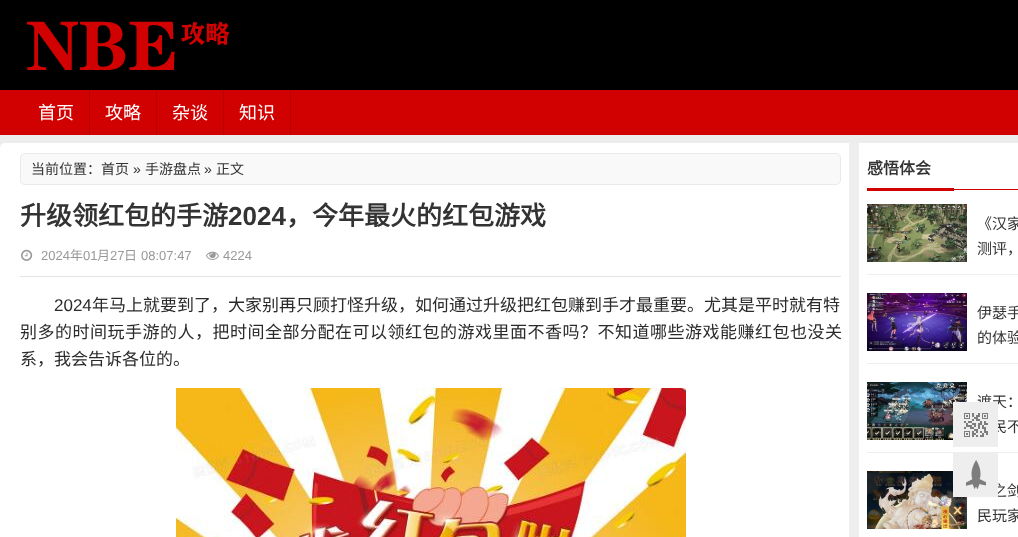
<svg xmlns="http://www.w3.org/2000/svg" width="1018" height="537">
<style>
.a{font:18px Noto Sans CJK SC;fill:#fff}
.b{font:14px Noto Sans CJK SC;fill:#333}
.c{font:14px Liberation Sans;fill:#333}
.d{font:bold 26px Noto Sans CJK SC;fill:#333}
.e{font:bold 26px Liberation Sans;fill:#333}
.f{font:13px Liberation Sans;fill:#999}
.g{font:13px Noto Sans CJK SC;fill:#999}
.h{font:17px Liberation Sans;fill:#2a2a2a}
.i{font:17px Noto Sans CJK SC;fill:#2a2a2a}
.j{font:17px Noto Sans CJK SC;letter-spacing:0.5px;fill:#2a2a2a}
.k{font:bold 16px Noto Sans CJK SC;fill:#333}
.l{font:15px Noto Sans CJK SC;fill:#333}
</style>
<rect width="100%" height="100%" fill="#ededed"/>
<path fill="#000" d="M0 0h1018v90H0z"/>
<image href="1.png" x="27" y="21" width="203" height="49"/>
<path fill="#d10101" d="M0 90h1018v45H0z"/>
<path fill="#b60101" d="M89 90h1v45H89z"/>
<path fill="#b60101" d="M156 90h1v45H156z"/>
<path fill="#b60101" d="M223 90h1v45H223z"/>
<path fill="#b60101" d="M290 90h1v45H290z"/>
<rect fill="#fff" y="143" width="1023" height="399" rx="5"/>
<path fill="#eee" d="M849 143h10v394H849z"/>
<rect fill="#f9f9f9" stroke="#e9e9e9" x="20.5" y="153.5" width="820" height="31" rx="4.5"/>
<path fill="#e3e3e3" d="M20 276h821v1H20z"/>
<image href="2.png" x="21" y="249" width="12" height="12"/>
<image href="3.png" x="206" y="251" width="13" height="9"/>
<image href="4.png" x="176" y="388" width="510" height="149"/>
<path fill="#d10101" d="M867 188h87v3H867z"/>
<path fill="#d10101" d="M954 189h64v1H954z"/>
<path fill="#eee" d="M867 274h151v1H867z"/>
<image href="5.png" x="867" y="204" width="100" height="58"/>
<path fill="#eee" d="M867 363h151v1H867z"/>
<image href="6.png" x="867" y="293" width="100" height="58"/>
<path fill="#eee" d="M867 452h151v1H867z"/>
<image href="7.png" x="867" y="382" width="100" height="58"/>
<image href="8.png" x="867" y="471" width="100" height="58"/>
<text class="a" x="38" y="119">首页</text>
<text class="a" x="105" y="119">攻略</text>
<text class="a" x="172" y="119">杂谈</text>
<text class="a" x="239" y="119">知识</text>
<text class="b" x="31" y="174">当前位置：首页</text>
<text class="c" x="133" y="174">»</text>
<text class="b" x="145" y="174">手游盘点</text>
<text class="c" x="204" y="174">»</text>
<text class="b" x="216" y="174">正文</text>
<text class="d" x="20" y="225">升级领红包的手游</text>
<text class="e" x="228" y="225">2024</text>
<text class="d" x="286" y="225">，今年最火的红包游戏</text>
<text class="f" x="41" y="260">2024</text>
<text class="g" x="70" y="260">年</text>
<text class="f" x="83" y="260">01</text>
<text class="g" x="97" y="260">月</text>
<text class="f" x="110" y="260">27</text>
<text class="g" x="124" y="260">日</text>
<text class="f" x="141" y="260">08:07:47</text>
<text class="f" x="223" y="260">4224</text>
<text class="h" x="54" y="311">2024</text>
<text class="i" x="92" y="311">年马上就要到了，大家别再只顾打怪升级，如何通过升级把红包赚到手才最重要。尤其是平时就有特</text>
<text class="j" x="20" y="338">别多的时间玩手游的人，把时间全部分配在可以领红包的游戏里面不香吗？不知道哪些游戏能赚红包也没关</text>
<text class="i" x="20" y="365">系，我会告诉各位的。</text>
<text class="k" x="867" y="174">感悟体会</text>
<text class="l" x="977" y="229">《汉家</text>
<text class="l" x="977" y="254">测评，</text>
<text class="l" x="977" y="318">伊瑟手</text>
<text class="l" x="977" y="343">的体验</text>
<text class="l" x="977" y="407">遮天：</text>
<text class="l" x="992" y="432">民不</text>
<text class="l" x="992" y="496">之剑</text>
<text class="l" x="977" y="521">民玩家</text>
<image href="9.png" x="953" y="402" width="45" height="45"/>
<image href="10.png" x="953" y="453" width="45" height="44"/>
</svg>
